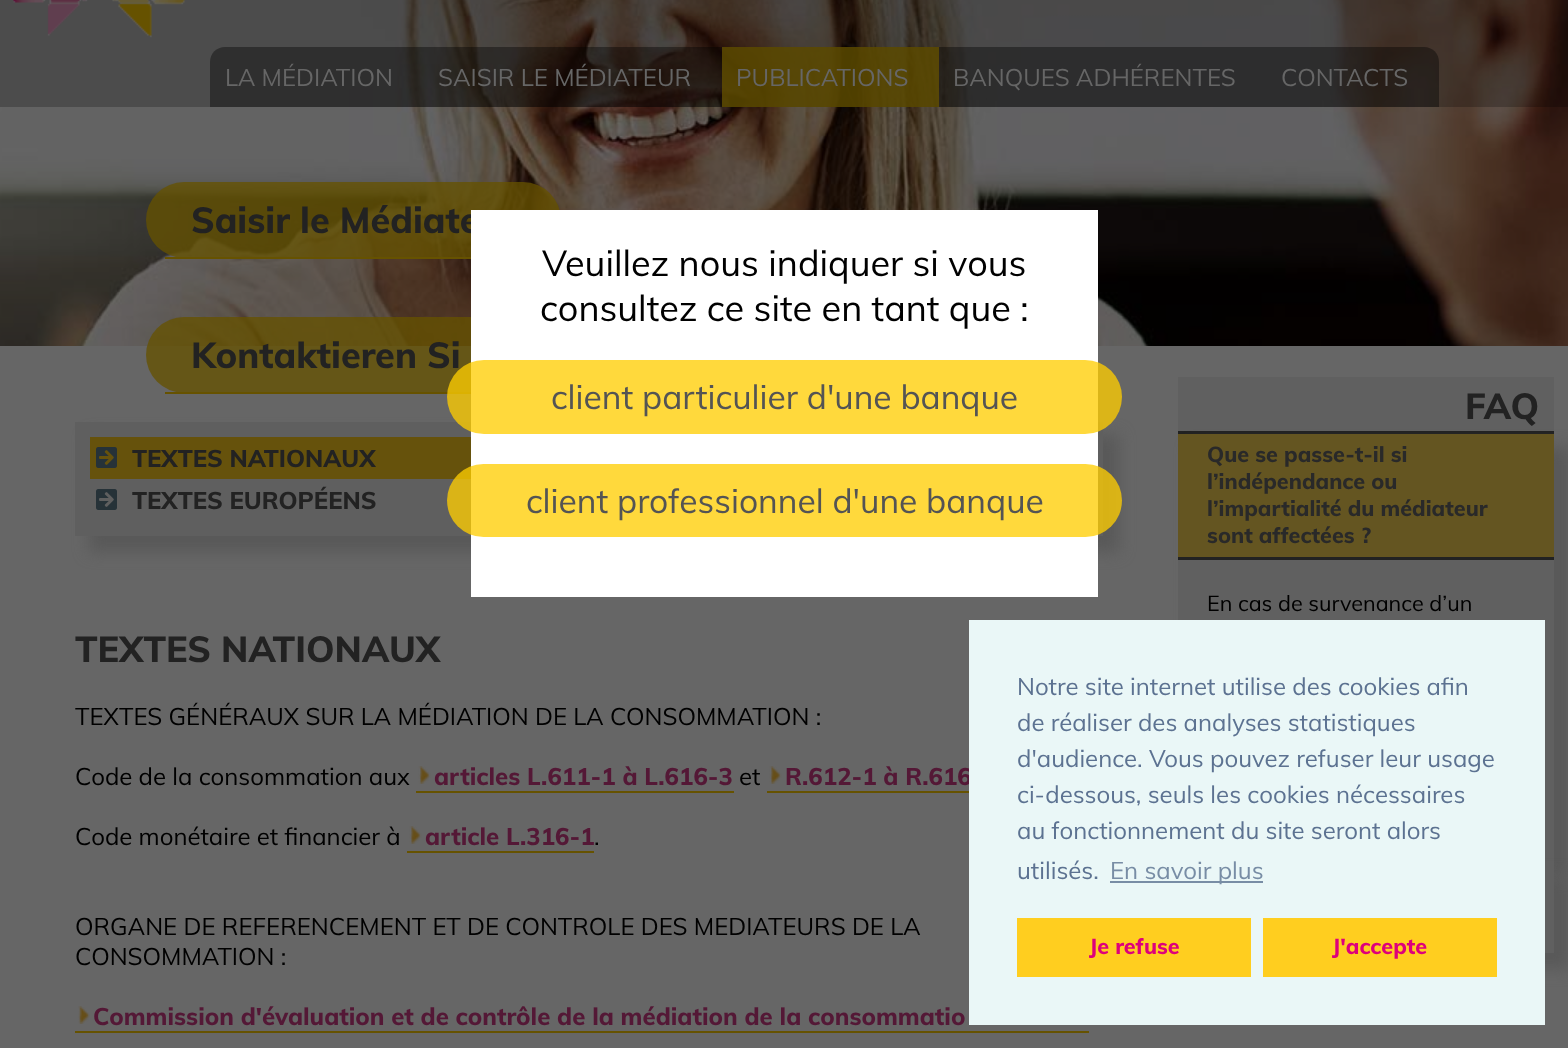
<svg xmlns="http://www.w3.org/2000/svg" width="1568" height="1048">
<style>
.a{font:24px Muli;fill:#666}
.b{font:800 36px Muli;fill:#222}
.c{font:800 24px Muli;fill:#222}
.d{font:24px Muli;fill:#000}
.e{font:800 24px Muli;fill:#541836}
.f{font:800 21.6px Muli;fill:#292929}
.g{font:21.6px Muli;fill:#000}
.h{font:36px Muli;fill:#000}
.i{font:33.6px Muli;fill:#545454}
.j{font:24px Muli;fill:#5c7291}
.k{font:24px Muli;fill:#788da5}
.l{font:800 21.6px Muli;fill:#de007b}
</style>
<rect width="100%" height="100%" fill="#666"/>
<image href="1.png" x="0" y="0" width="1568" height="346"/>
<path fill="#0000003b" d="M0 0h1568v107H0z"/>
<image href="2.png" x="13" y="0" width="172" height="38"/>
<path fill="#00000061" d="M225 47h1199c8.5 0 15 6.5 15 15v45h-1229v-45c0-8.5 6.5-15 15-15z"/>
<path fill="#665200c4" d="M722 47h217v60H722z"/>
<rect fill="#665200c4" x="146" y="182" width="415" height="76" rx="38"/>
<path fill="#665200" d="M165 257h306v2H165z"/>
<rect fill="#665200c4" x="146" y="317" width="621" height="76" rx="38"/>
<path fill="#665200" d="M165 392h306v2H165z"/>
<path fill="#595959" filter="blur(7.5px)" d="M89 435h1030v117H89z"/>
<path fill="#5f5f5f" d="M75 422h1028v114H75z"/>
<path fill="#66520c" d="M90 437h381v42H90z"/>
<image href="3.png" x="96" y="447" width="21" height="21"/>
<image href="4.png" x="96" y="489" width="21" height="21"/>
<image href="5.png" x="418" y="766" width="13" height="18"/>
<path fill="#665200" d="M416 791h318v2H416z"/>
<image href="5.png" x="769" y="766" width="13" height="18"/>
<path fill="#665200" d="M767 791h202v2H767z"/>
<image href="5.png" x="409" y="826" width="13" height="18"/>
<path fill="#665200" d="M407 851h187v2H407z"/>
<image href="6.png" x="78" y="1006" width="12" height="18"/>
<path fill="#665200" d="M75 1031h1014v2H75z"/>
<path fill="#606060" d="M1178 377h376v54H1178z"/>
<path fill="#222" d="M1178 431h376v3H1178z"/>
<path fill="#595959" filter="blur(7.5px)" d="M1191 447h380v432H1191z"/>
<path fill="#645521" d="M1178 434h376v123H1178z"/>
<path fill="#222" d="M1178 557h376v3H1178z"/>
<path fill="#606060" d="M1178 560h376v303H1178z"/>
<path fill="#595959" filter="blur(7.5px)" d="M1191 876h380v93H1191z"/>
<path fill="#606060" d="M1545 863h9v90H1545z"/>
<text class="a" x="225" y="86">LA MÉDIATION</text>
<text class="a" x="438" y="86">SAISIR LE MÉDIATEUR</text>
<text class="a" x="736" y="86">PUBLICATIONS</text>
<text class="a" x="953" y="86">BANQUES ADHÉRENTES</text>
<text class="a" x="1281" y="86">CONTACTS</text>
<text class="b" x="191" y="233">Saisir le Médiate</text>
<text class="b" x="191" y="368">Kontaktieren Si</text>
<text class="c" x="132" y="467">TEXTES NATIONAUX</text>
<text class="c" x="132" y="509">TEXTES EUROPÉENS</text>
<text class="b" x="75" y="662">TEXTES NATIONAUX</text>
<text class="d" x="75" y="725">TEXTES GÉNÉRAUX SUR LA MÉDIATION DE LA CONSOMMATION :</text>
<text class="d" x="75" y="785">Code de la consommation aux</text>
<text class="e" x="434" y="785">articles L.611-1 à L.616-3</text>
<text class="d" x="739" y="785">et</text>
<text class="e" x="785" y="785">R.612-1 à R.616</text>
<text class="d" x="75" y="845">Code monétaire et financier à</text>
<text class="e" x="425" y="845">article L.316-1</text>
<text class="d" x="594" y="845">.</text>
<text class="d" x="75" y="935">ORGANE DE REFERENCEMENT ET DE CONTROLE DES MEDIATEURS DE LA</text>
<text class="d" x="75" y="965">CONSOMMATION :</text>
<text class="e" x="93" y="1025">Commission d'évaluation et de contrôle de la médiation de la consommatio</text>
<text class="b" x="1465" y="419">FAQ</text>
<text class="f" x="1207" y="462">Que se passe-t-il si</text>
<text class="f" x="1207" y="489">l’indépendance ou</text>
<text class="f" x="1207" y="516">l’impartialité du médiateur</text>
<text class="f" x="1207" y="543">sont affectées ?</text>
<text class="g" x="1207" y="611">En cas de survenance d’un</text>
<path fill="#fff" d="M471 210h627v387H471z"/>
<text class="h" x="542" y="276">Veuillez nous indiquer si vous</text>
<text class="h" x="540" y="321">consultez ce site en tant que :</text>
<rect fill="#ffce01c4" x="447" y="360" width="675" height="74" rx="37"/>
<text class="i" x="551" y="409">client particulier d'une banque</text>
<rect fill="#ffce01c4" x="447" y="464" width="675" height="73" rx="36.5"/>
<text class="i" x="526" y="513">client professionnel d'une banque</text>
<path fill="#eaf7f7" d="M969 620h576v405H969z"/>
<text class="j" x="1017" y="695">Notre site internet utilise des cookies afin</text>
<text class="j" x="1017" y="731">de réaliser des analyses statistiques</text>
<text class="j" x="1017" y="767">d'audience. Vous pouvez refuser leur usage</text>
<text class="j" x="1017" y="803">ci-dessous, seuls les cookies nécessaires</text>
<text class="j" x="1017" y="839">au fonctionnement du site seront alors</text>
<text class="j" x="1017" y="879">utilisés.</text>
<path fill="#788da5" d="M1110 881h153v2H1110z"/>
<text class="k" x="1110" y="879">En savoir plus</text>
<path fill="#ffce1f" d="M1017 918h234v59H1017z"/>
<text class="l" x="1089" y="954">Je refuse</text>
<path fill="#ffce1f" d="M1263 918h234v59H1263z"/>
<text class="l" x="1332" y="954">J'accepte</text>
</svg>
